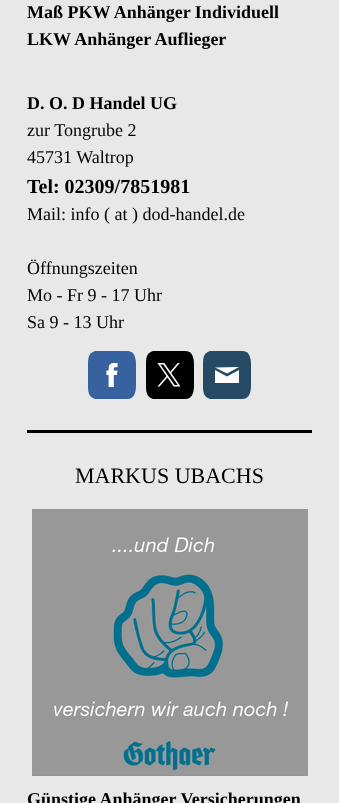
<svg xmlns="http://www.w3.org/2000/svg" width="339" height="803">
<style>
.a{font:bold 18px Liberation Serif;fill:#000}
.b{font:18px Liberation Serif;fill:#000}
.c{font:bold 20px Liberation Serif;fill:#000}
.d{font:22px Liberation Serif;fill:#000}
</style>
<rect width="100%" height="100%" fill="#e8e8e8"/>
<path fill="#38619f" d="M127 399h-32c-7-2-7-8-7-14v-20c0-6 0-12 7-14h32c8 0 9 8 9 14v20c0 6-1 14-9 14z"/>
<image href="1.png" x="106" y="363" width="12" height="24"/>
<path fill="#000" d="M185 399h-32c-7-2-7-8-7-14v-20c0-6 0-12 7-14h32c8 0 9 8 9 14v20c0 6-1 14-9 14z"/>
<image href="2.png" x="157" y="363" width="24" height="24"/>
<path fill="#264a64" d="M242 399h-32c-7-2-7-8-7-14v-20c0-6 0-12 7-14h32c8 0 9 8 9 14v20c0 6-1 14-9 14z"/>
<path fill="#fff" d="M239 383h-24v-13l12 6.5l12-6.5zm0-16l-24 .5l12 6z"/>
<path fill="#000" d="M27 430h285v3H27z"/>
<image href="3.png" x="32" y="509" width="276" height="267"/>
<text class="a" x="27" y="18">Maß PKW Anhänger Individuell</text>
<text class="a" x="27" y="45">LKW Anhänger Auflieger</text>
<text class="a" x="27" y="109">D. O. D Handel UG</text>
<text class="b" x="27" y="136">zur Tongrube 2</text>
<text class="b" x="27" y="163">45731 Waltrop</text>
<text class="c" x="27" y="193">Tel: 02309/7851981</text>
<text class="b" x="27" y="220">Mail: info ( at ) dod-handel.de</text>
<text class="b" x="27" y="274">Öffnungszeiten</text>
<text class="b" x="27" y="301">Mo - Fr 9 - 17 Uhr</text>
<text class="b" x="27" y="328">Sa 9 - 13 Uhr</text>
<text class="d" x="75" y="483">MARKUS UBACHS</text>
<text class="a" x="27" y="805">Günstige Anhänger Versicherungen</text>
</svg>
